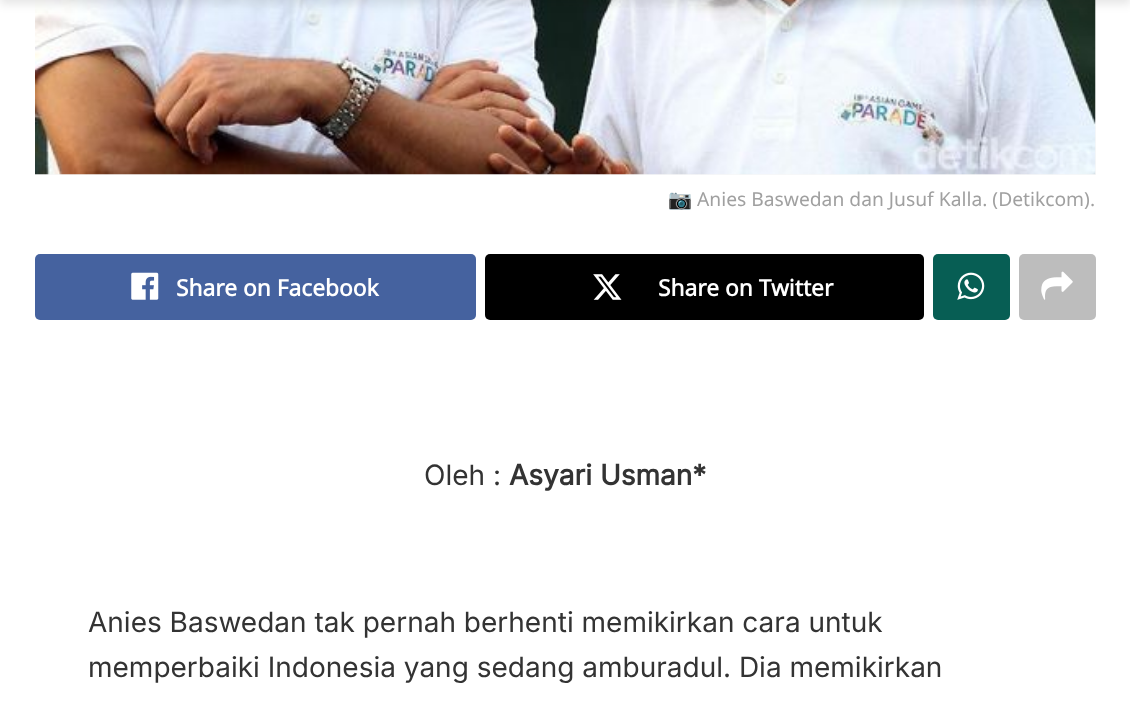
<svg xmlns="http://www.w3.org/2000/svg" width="1130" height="701">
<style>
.a{font:19.25px Noto Color Emoji;fill:#a0a0a0}
.b{font:19.25px Noto Sans;fill:#a0a0a0}
.c{font:bold 22.75px Noto Sans;fill:#fff}
.d{font:28px Inter;fill:#333}
.e{font:bold 28px Inter;fill:#333}
</style>
<rect width="100%" height="100%" fill="#fff"/>
<path fill="#f7f7f7" d="M35 0h1061v175H35z"/>
<image href="1.png" x="35" y="0" width="1061" height="175"/>
<path fill="#0000001a" filter="blur(5px)" d="M0 -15h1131v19H0z"/>
<rect fill="#45629f" x="35" y="254" width="441" height="66" rx="5"/>
<image href="2.png" x="131" y="272" width="28" height="28"/>
<rect fill="#000" x="485" y="254" width="439" height="66" rx="5"/>
<image href="3.png" x="593" y="274" width="29" height="26"/>
<rect fill="#075e54" x="933" y="254" width="77" height="66" rx="5"/>
<image href="4.png" x="957" y="272" width="28" height="28"/>
<rect fill="#bdbdbd" x="1019" y="254" width="77" height="66" rx="5"/>
<image href="5.png" x="1041" y="271" width="32" height="29"/>
<text class="a" x="668" y="206">📷</text>
<text class="b" x="697" y="206">Anies Baswedan dan Jusuf Kalla. (Detikcom).</text>
<text class="c" x="176" y="296">Share on Facebook</text>
<text class="c" x="658" y="296">Share on Twitter</text>
<text class="d" x="424" y="485">Oleh :</text>
<text class="e" x="509" y="485">Asyari Usman*</text>
<text class="d" x="88" y="632">Anies Baswedan tak pernah berhenti memikirkan cara untuk</text>
<text class="d" x="88" y="677">memperbaiki Indonesia yang sedang amburadul. Dia memikirkan</text>
</svg>
